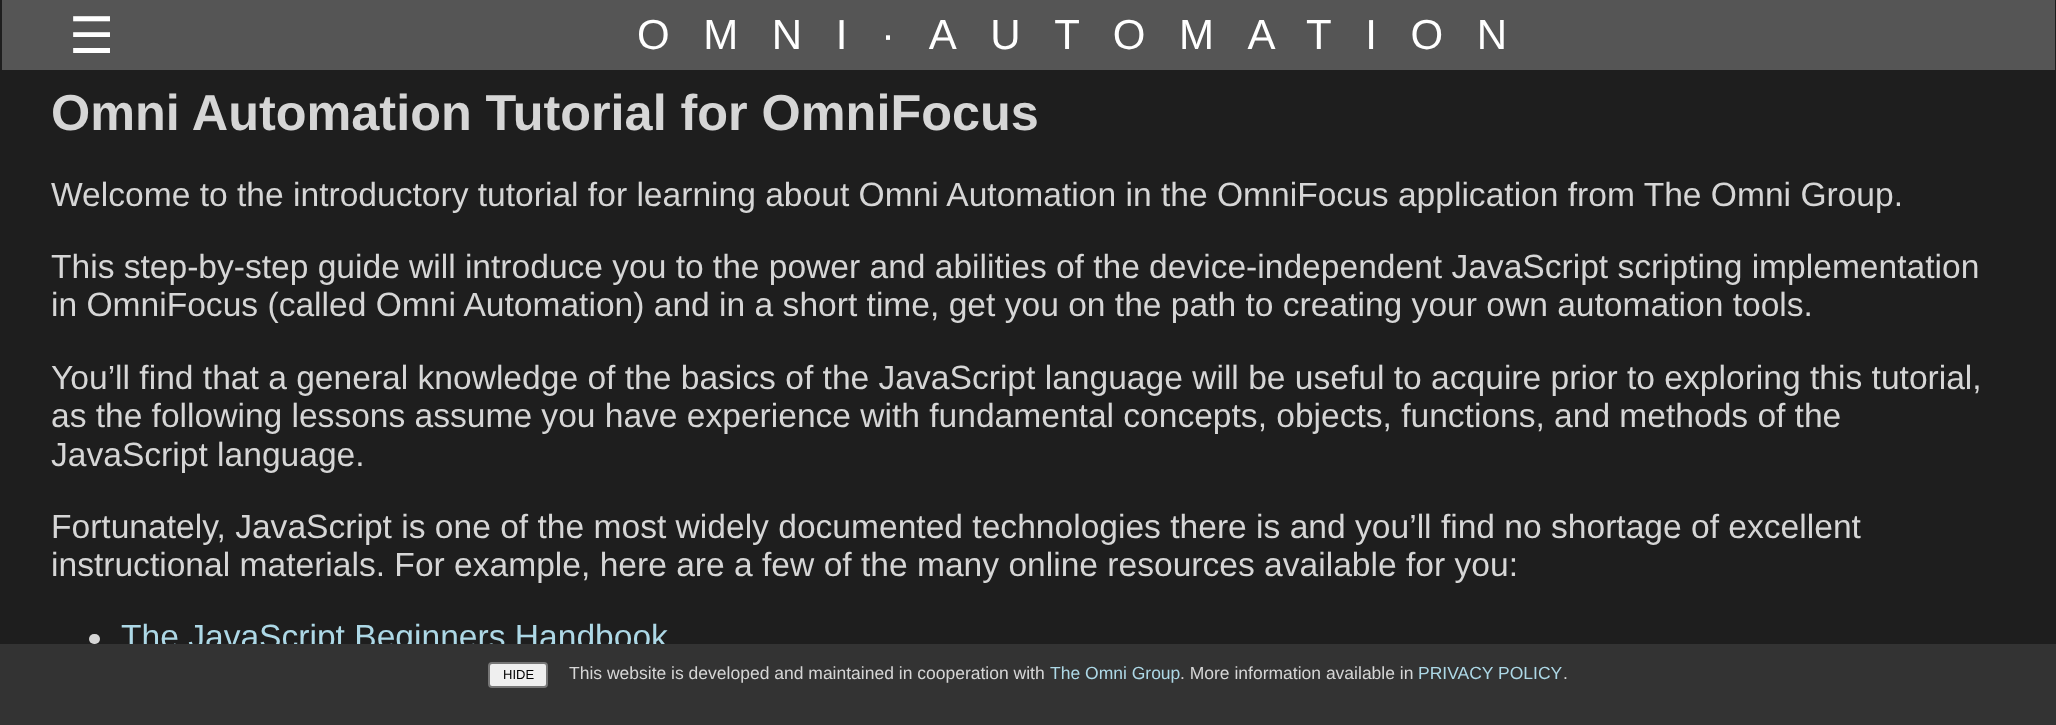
<svg xmlns="http://www.w3.org/2000/svg" width="2056" height="725">
<style>
.a{font:50.4px DejaVu Sans;fill:#fff}
.b{font:42px Liberation Sans;letter-spacing:33.6px;fill:#fff}
.c{font:bold 50.4px Liberation Sans;fill:#d6d6d6}
.d{font:33.6px Liberation Sans;fill:#d6d6d6}
.e{font:33.6px Liberation Sans;fill:#add8e6}
.f{font:13px Liberation Sans;fill:#000}
.g{font:17.5px Liberation Sans;fill:#d6d6d6}
.h{font:17.5px Liberation Sans;fill:#add8e6}
</style>
<rect width="100%" height="100%" fill="#1e1e1e"/>
<path fill="#555" d="M2 0h2053v70H2z"/>
<rect fill="#d6d6d6" x="89" y="634" width="11" height="10" rx="5"/>
<text class="a" x="69" y="53">☰</text>
<text class="b" x="637" y="49">OMNI·AUTOMATION</text>
<text class="c" x="51" y="130" word-spacing="-0.1">Omni Automation Tutorial for OmniFocus</text>
<text class="d" x="51" y="206">Welcome to the introductory tutorial for learning about Omni Automation in the OmniFocus application from The Omni Group.</text>
<text class="d" x="51" y="278" word-spacing="-0.1">This step-by-step guide will introduce you to the power and abilities of the device-independent JavaScript scripting implementation</text>
<text class="d" x="51" y="316">in OmniFocus (called Omni Automation) and in a short time, get you on the path to creating your own automation tools.</text>
<text class="d" x="51" y="389">You’ll find that a general knowledge of the basics of the JavaScript language will be useful to acquire prior to exploring this tutorial,</text>
<text class="d" x="51" y="427" word-spacing="-0.1">as the following lessons assume you have experience with fundamental concepts, objects, functions, and methods of the</text>
<text class="d" x="51" y="466">JavaScript language.</text>
<text class="d" x="51" y="538">Fortunately, JavaScript is one of the most widely documented technologies there is and you’ll find no shortage of excellent</text>
<text class="d" x="51" y="576">instructional materials. For example, here are a few of the many online resources available for you:</text>
<text class="e" x="121" y="648">The JavaScript Beginners Handbook</text>
<path fill="#333" d="M0 644h2056v81H0z"/>
<rect fill="#efefef" stroke="#767676" stroke-width="2" x="489" y="663" width="58" height="24" rx="3"/>
<text class="f" x="503" y="679">HIDE</text>
<text class="g" x="569" y="679">This website is developed and maintained in cooperation with</text>
<text class="h" x="1050" y="679">The Omni Group</text>
<text class="g" x="1180" y="679">. More information available in</text>
<text class="h" x="1418" y="679">PRIVACY POLICY</text>
<text class="g" x="1563" y="679">.</text>
</svg>
